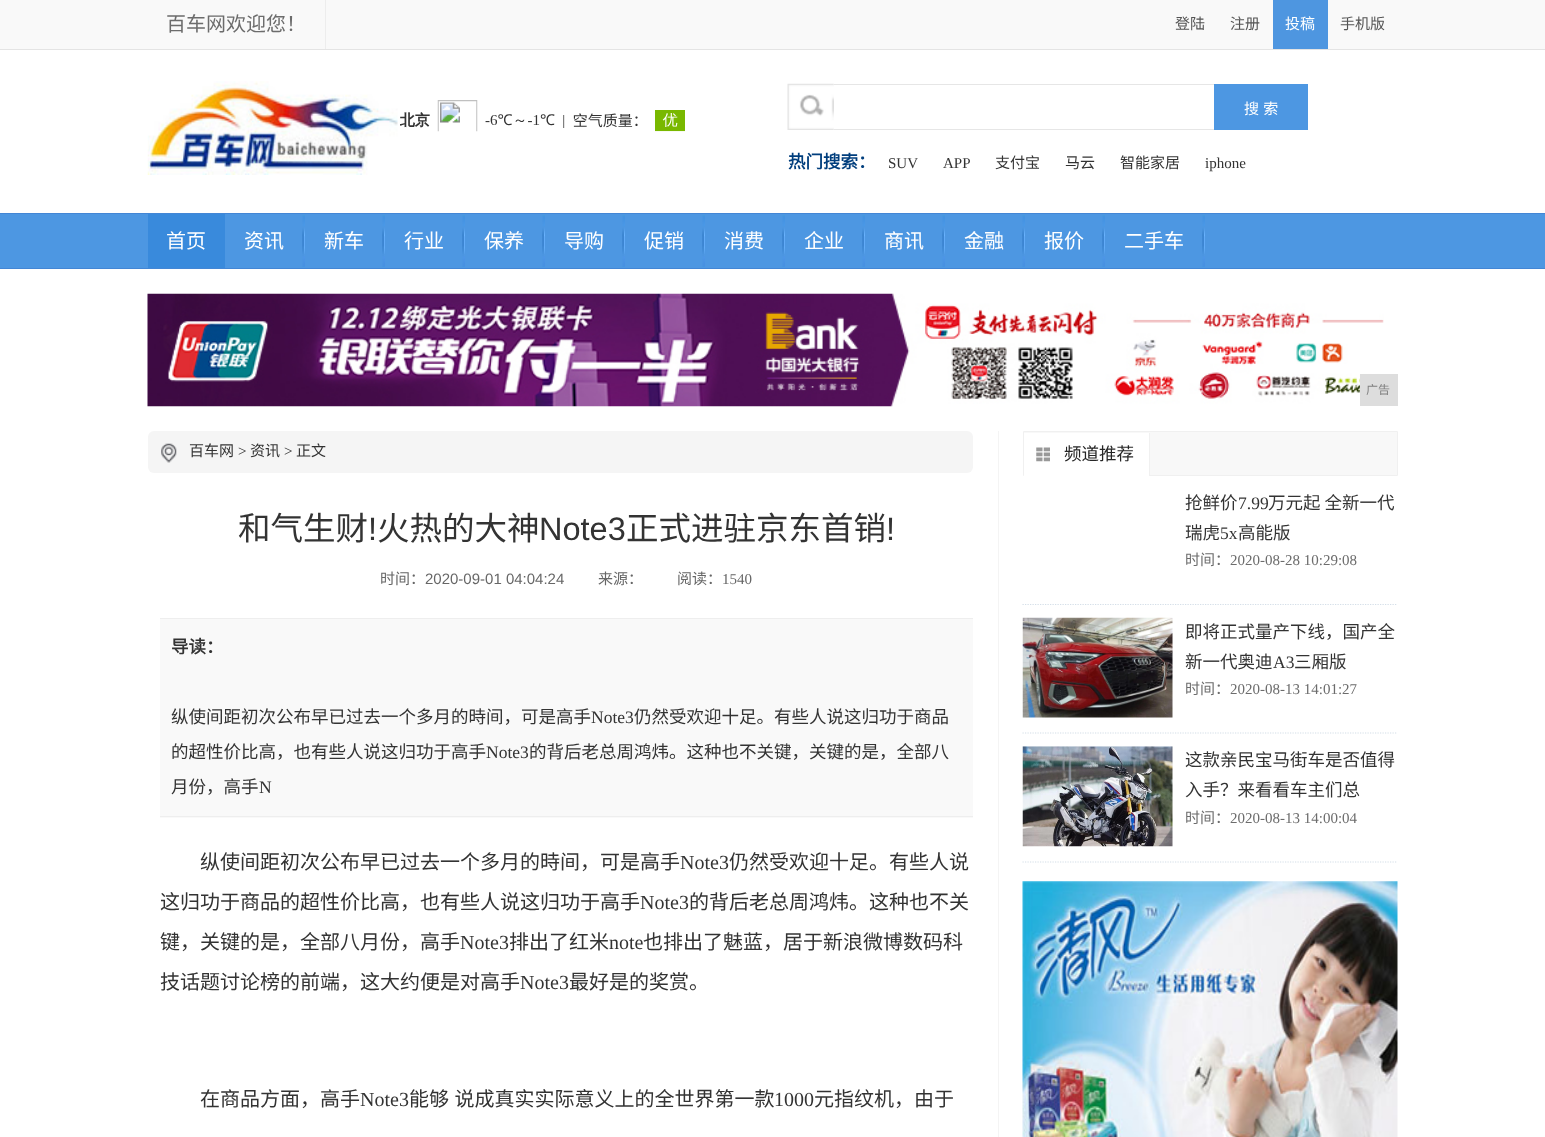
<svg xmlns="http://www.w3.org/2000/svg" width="1545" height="1137">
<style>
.a{font:20px Noto Sans CJK SC;fill:#6c6c6c}
.b{font:15px Noto Sans CJK SC;fill:#545454}
.c{font:15px Noto Sans CJK SC;fill:#fff}
.d{font:bold 17.5px Noto Sans CJK SC;fill:#003e7d}
.e{font:15px Liberation Serif;fill:#333}
.f{font:15px Noto Sans CJK SC;fill:#333}
.g{font:20px Noto Sans CJK SC;fill:#fff}
.h{font:12px Noto Sans CJK SC;fill:#808080}
.i{font:32.5px Noto Sans CJK SC;fill:#333}
.j{font:32.5px Liberation Sans;fill:#333}
.k{font:15px Noto Sans CJK SC;fill:#666}
.l{font:15px Liberation Sans;fill:#666}
.m{font:15px Liberation Serif;fill:#666}
.n{font:bold 17.5px Noto Sans CJK SC;fill:#333}
.o{font:17.5px Noto Sans CJK SC;fill:#333}
.p{font:17.5px Liberation Serif;fill:#333}
.q{font:20px Noto Sans CJK SC;fill:#333}
.r{font:20px Liberation Serif;fill:#333}
.s{font:17.5px Noto Sans CJK SC;fill:#262626}
.t{font:15px Noto Sans CJK SC;fill:#6c6c6c}
.u{font:15px Liberation Serif;fill:#6c6c6c}
</style>
<rect width="100%" height="100%" fill="#fff"/>
<path fill="#f9f9f9" d="M0 0h1545v49H0z"/>
<path fill="#e4e4e4" d="M0 49h1545v1H0z"/>
<path fill="#ededed" d="M325 0h1v49H325z"/>
<path fill="#4e96e0" d="M1273 0h55v49H1273z"/>
<image href="1.png" x="147" y="81" width="251" height="94"/>
<image href="2.png" x="400" y="100" width="285" height="32"/>
<image href="3.png" x="787" y="83" width="47" height="47"/>
<path fill="#e6e6e6" d="M834 84h380v1H834z"/>
<path fill="#e6e6e6" d="M834 129h380v1H834z"/>
<path fill="#4d97e2" d="M1214 84h94v46H1214z"/>
<path fill="#4d97e2" d="M0 214h1545v54H0z"/>
<path fill="#4386d5" d="M0 213h1545v1H0z"/>
<path fill="#4386d5" d="M0 268h1545v1H0z"/>
<path fill="#398adc" d="M148 214h77v54H148z"/>
<image href="4.png" x="302" y="215" width="3" height="52"/>
<image href="4.png" x="382" y="215" width="3" height="52"/>
<image href="4.png" x="462" y="215" width="3" height="52"/>
<image href="4.png" x="542" y="215" width="3" height="52"/>
<image href="4.png" x="622" y="215" width="3" height="52"/>
<image href="4.png" x="702" y="215" width="3" height="52"/>
<image href="4.png" x="782" y="215" width="3" height="52"/>
<image href="4.png" x="862" y="215" width="3" height="52"/>
<image href="4.png" x="942" y="215" width="3" height="52"/>
<image href="4.png" x="1022" y="215" width="3" height="52"/>
<image href="4.png" x="1102" y="215" width="3" height="52"/>
<image href="4.png" x="1202" y="215" width="3" height="52"/>
<image href="5.png" x="147" y="293" width="1237" height="114"/>
<path fill="#ddd" d="M1360 374h38v32H1360z"/>
<path fill="#f4f4f4" d="M998 431h1v706H998z"/>
<rect fill="#f5f5f5" x="148" y="431" width="825" height="42" rx="6"/>
<image href="6.png" x="161" y="443" width="16" height="20"/>
<path fill="#f9f9f9" d="M160 619h813v199H160z"/>
<path fill="#eee" d="M160 618h813v1H160z"/>
<path fill="#eee" d="M160 816h813v1H160z"/>
<path fill="#f8f8f8" stroke="#f0f0f0" d="M1023.5 431.5h374v44H1023.5z"/>
<path fill="#fff" d="M1024 433h125v43H1024z"/>
<path fill="#f0f0f0" d="M1149 433h1v43H1149z"/>
<image href="7.png" x="1036" y="447" width="14" height="15"/>
<path fill="none" stroke="#d4dee8" stroke-width="1.2" stroke-dasharray="1.25 1.25" d="M1022.5 604.5h375"/>
<path fill="none" stroke="#d4dee8" stroke-width="1.2" stroke-dasharray="1.25 1.25" d="M1022.5 733h375"/>
<image href="8.png" x="1022" y="617" width="151" height="101"/>
<path fill="none" stroke="#d4dee8" stroke-width="1.2" stroke-dasharray="1.25 1.25" d="M1022.5 862h375"/>
<image href="9.png" x="1022" y="746" width="151" height="101"/>
<image href="10.png" x="1022" y="881" width="376" height="256"/>
<text class="a" x="166" y="31">百车网欢迎您！</text>
<text class="b" x="1175" y="29">登陆</text>
<text class="b" x="1230" y="29">注册</text>
<text class="c" x="1285" y="29">投稿</text>
<text class="b" x="1340" y="29">手机版</text>
<text class="c" x="1244" y="114" word-spacing="1">搜 索</text>
<text class="d" x="788" y="168">热门搜索：</text>
<text class="e" x="888" y="168">SUV</text>
<text class="e" x="943" y="168">APP</text>
<text class="f" x="995" y="168">支付宝</text>
<text class="f" x="1065" y="168">马云</text>
<text class="f" x="1120" y="168">智能家居</text>
<text class="e" x="1205" y="168">iphone</text>
<text class="g" x="166" y="248">首页</text>
<text class="g" x="244" y="248">资讯</text>
<text class="g" x="324" y="248">新车</text>
<text class="g" x="404" y="248">行业</text>
<text class="g" x="484" y="248">保养</text>
<text class="g" x="564" y="248">导购</text>
<text class="g" x="644" y="248">促销</text>
<text class="g" x="724" y="248">消费</text>
<text class="g" x="804" y="248">企业</text>
<text class="g" x="884" y="248">商讯</text>
<text class="g" x="964" y="248">金融</text>
<text class="g" x="1044" y="248">报价</text>
<text class="g" x="1124" y="248">二手车</text>
<text class="h" x="1366" y="394">广告</text>
<text class="f" x="189" y="456">百车网</text>
<text class="e" x="238" y="456">&gt;</text>
<text class="f" x="250" y="456">资讯</text>
<text class="e" x="284" y="456">&gt;</text>
<text class="f" x="296" y="456">正文</text>
<text class="i" x="238" y="540">和气生财</text>
<text class="j" x="368" y="540">!</text>
<text class="i" x="377" y="540">火热的大神</text>
<text class="j" x="539" y="540">Note3</text>
<text class="i" x="626" y="540">正式进驻京东首销</text>
<text class="j" x="886" y="540">!</text>
<text class="k" x="380" y="584">时间：</text>
<text class="l" x="425" y="584">2020-09-01 04:04:24</text>
<text class="k" x="598" y="584">来源：</text>
<text class="k" x="677" y="584">阅读：</text>
<text class="m" x="722" y="584">1540</text>
<text class="n" x="171" y="653">导读：</text>
<text class="o" x="171" y="723">纵使间距初次公布早已过去一个多月的時间，可是高手</text>
<text class="p" x="591" y="723">Note3</text>
<text class="o" x="634" y="723">仍然受欢迎十足。有些人说这归功于商品</text>
<text class="o" x="171" y="758">的超性价比高，也有些人说这归功于高手</text>
<text class="p" x="486" y="758">Note3</text>
<text class="o" x="529" y="758">的背后老总周鸿炜。这种也不关键，关键的是，全部八</text>
<text class="o" x="171" y="793">月份，高手</text>
<text class="p" x="259" y="793">N</text>
<text class="q" x="200" y="869">纵使间距初次公布早已过去一个多月的時间，可是高手</text>
<text class="r" x="680" y="869">Note3</text>
<text class="q" x="729" y="869">仍然受欢迎十足。有些人说</text>
<text class="q" x="160" y="909">这归功于商品的超性价比高，也有些人说这归功于高手</text>
<text class="r" x="640" y="909">Note3</text>
<text class="q" x="689" y="909">的背后老总周鸿炜。这种也不关</text>
<text class="q" x="160" y="949">键，关键的是，全部八月份，高手</text>
<text class="r" x="460" y="949">Note3</text>
<text class="q" x="509" y="949">排出了红米</text>
<text class="r" x="609" y="949">note</text>
<text class="q" x="643" y="949">也排出了魅蓝，居于新浪微博数码科</text>
<text class="q" x="160" y="989">技话题讨论榜的前端，这大约便是对高手</text>
<text class="r" x="520" y="989">Note3</text>
<text class="q" x="569" y="989">最好是的奖赏。</text>
<text class="q" x="200" y="1106">在商品方面，高手</text>
<text class="r" x="360" y="1106">Note3</text>
<text class="q" x="409" y="1106" word-spacing="1">能够 说成真实实际意义上的全世界第一款</text>
<text class="r" x="774" y="1106">1000</text>
<text class="q" x="814" y="1106">元指纹机，由于</text>
<text class="s" x="1064" y="460">频道推荐</text>
<text class="o" x="1185" y="509">抢鲜价</text>
<text class="p" x="1238" y="509">7.99</text>
<text class="o" x="1268" y="509">万元起 全新一代</text>
<text class="o" x="1185" y="539">瑞虎</text>
<text class="p" x="1220" y="539">5x</text>
<text class="o" x="1238" y="539">高能版</text>
<text class="t" x="1185" y="565">时间：</text>
<text class="u" x="1230" y="565">2020-08-28 10:29:08</text>
<text class="o" x="1185" y="638">即将正式量产下线，国产全</text>
<text class="o" x="1185" y="668">新一代奥迪</text>
<text class="p" x="1273" y="668">A3</text>
<text class="o" x="1294" y="668">三厢版</text>
<text class="t" x="1185" y="694">时间：</text>
<text class="u" x="1230" y="694">2020-08-13 14:01:27</text>
<text class="o" x="1185" y="766">这款亲民宝马街车是否值得</text>
<text class="o" x="1185" y="796">入手？来看看车主们总</text>
<text class="t" x="1185" y="823">时间：</text>
<text class="u" x="1230" y="823">2020-08-13 14:00:04</text>
</svg>
